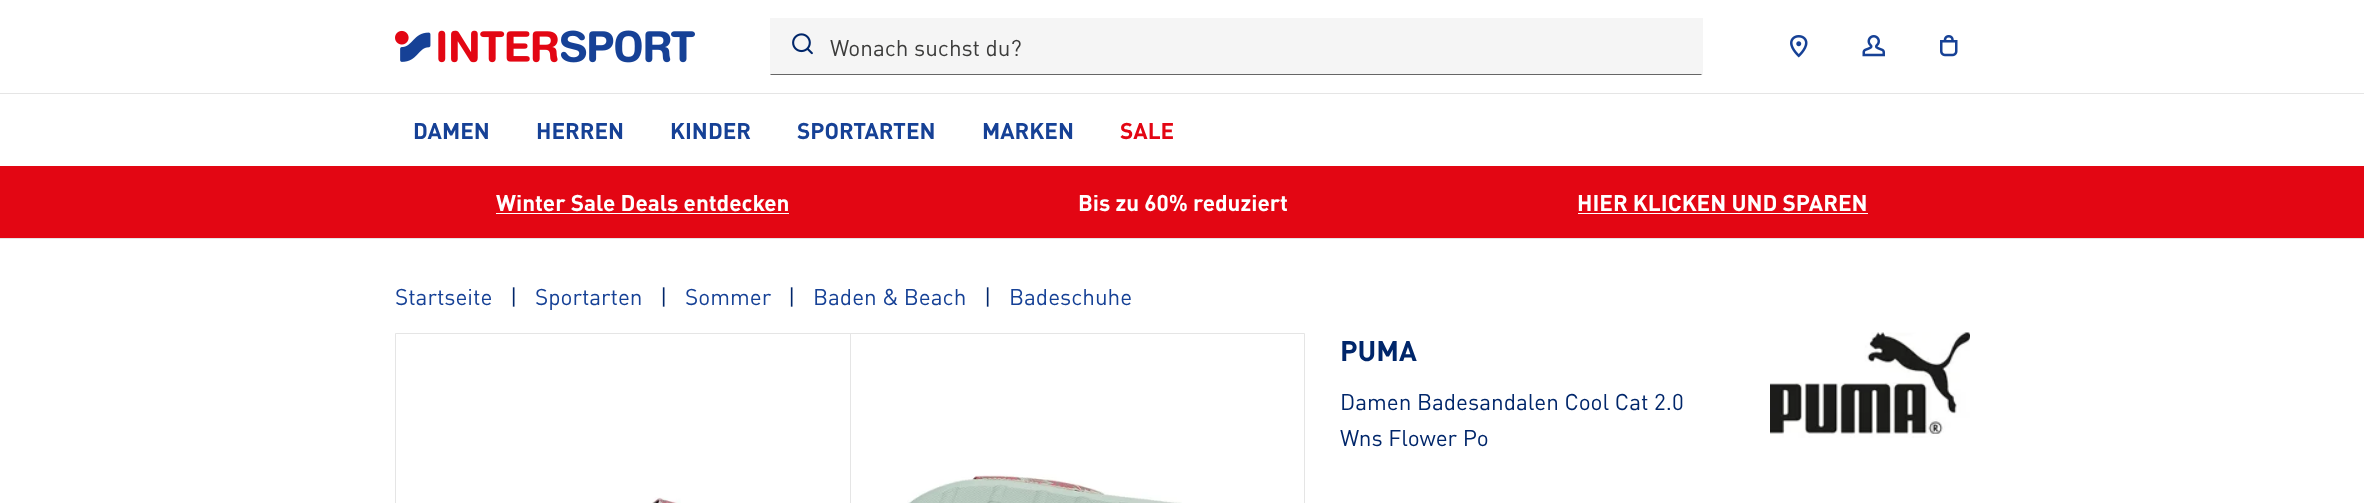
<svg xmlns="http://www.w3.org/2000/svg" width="2364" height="503">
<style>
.a{font:22.5px DIN;fill:#3c3c3b}
.b{font:bold 22.5px DIN;fill:#164196}
.c{font:bold 22.5px DIN;fill:#e30613}
.d{font:bold 22.5px DIN;fill:#fff}
.e{font:22.5px DIN;fill:#164196}
.f{font:22.5px DIN;fill:#00266a}
.g{font:bold 28px DIN;fill:#00266a}
</style>
<rect width="100%" height="100%" fill="#fff"/>
<path fill="#e5e5e5" d="M0 238h2364v1H0z"/>
<image href="1.png" x="395" y="30" width="300" height="33"/>
<path fill="#f5f5f5" d="M770 18h933v57H770z"/>
<path fill="#666" d="M1702 75h-932l1-1h930z"/>
<image href="2.png" x="792" y="33" width="21" height="22"/>
<image href="3.png" x="1790" y="35" width="18" height="23"/>
<image href="4.png" x="1862" y="35" width="23" height="22"/>
<image href="5.png" x="1940" y="35" width="18" height="22"/>
<path fill="#e5e5e5" d="M0 93h2364v1H0z"/>
<path fill="#e30613" d="M0 166h2364v72H0z"/>
<path fill="#fff" d="M496 213h293v1H496z"/>
<path fill="#fff" d="M1578 213h290v1H1578z"/>
<path fill="none" stroke="#e5e5e5" d="M395.5 333.5h455v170H395.5z"/>
<image href="6.png" x="652" y="497" width="29" height="6"/>
<path fill="none" stroke="#e5e5e5" d="M850.5 333.5h454v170H850.5z"/>
<image href="7.png" x="907" y="474" width="275" height="29"/>
<image href="8.png" x="1770" y="332" width="200" height="106"/>
<text class="a" x="830" y="56">Wonach suchst du?</text>
<text class="b" x="413" y="139">DAMEN</text>
<text class="b" x="536" y="139">HERREN</text>
<text class="b" x="670" y="139">KINDER</text>
<text class="b" x="797" y="139">SPORTARTEN</text>
<text class="b" x="982" y="139">MARKEN</text>
<text class="c" x="1120" y="139">SALE</text>
<text class="d" x="496" y="211">Winter Sale Deals entdecken</text>
<text class="d" x="1078" y="211">Bis zu 60% reduziert</text>
<text class="d" x="1577" y="211">HIER KLICKEN UND SPAREN</text>
<text class="e" x="395" y="305">Startseite</text>
<text class="f" x="510" y="305">|</text>
<text class="e" x="535" y="305">Sportarten</text>
<text class="f" x="660" y="305">|</text>
<text class="e" x="685" y="305">Sommer</text>
<text class="f" x="788" y="305">|</text>
<text class="e" x="813" y="305">Baden &amp; Beach</text>
<text class="f" x="984" y="305">|</text>
<text class="e" x="1009" y="305">Badeschuhe</text>
<text class="g" x="1340" y="361">PUMA</text>
<text class="f" x="1340" y="410">Damen Badesandalen Cool Cat 2.0</text>
<text class="f" x="1340" y="446">Wns Flower Po</text>
</svg>
